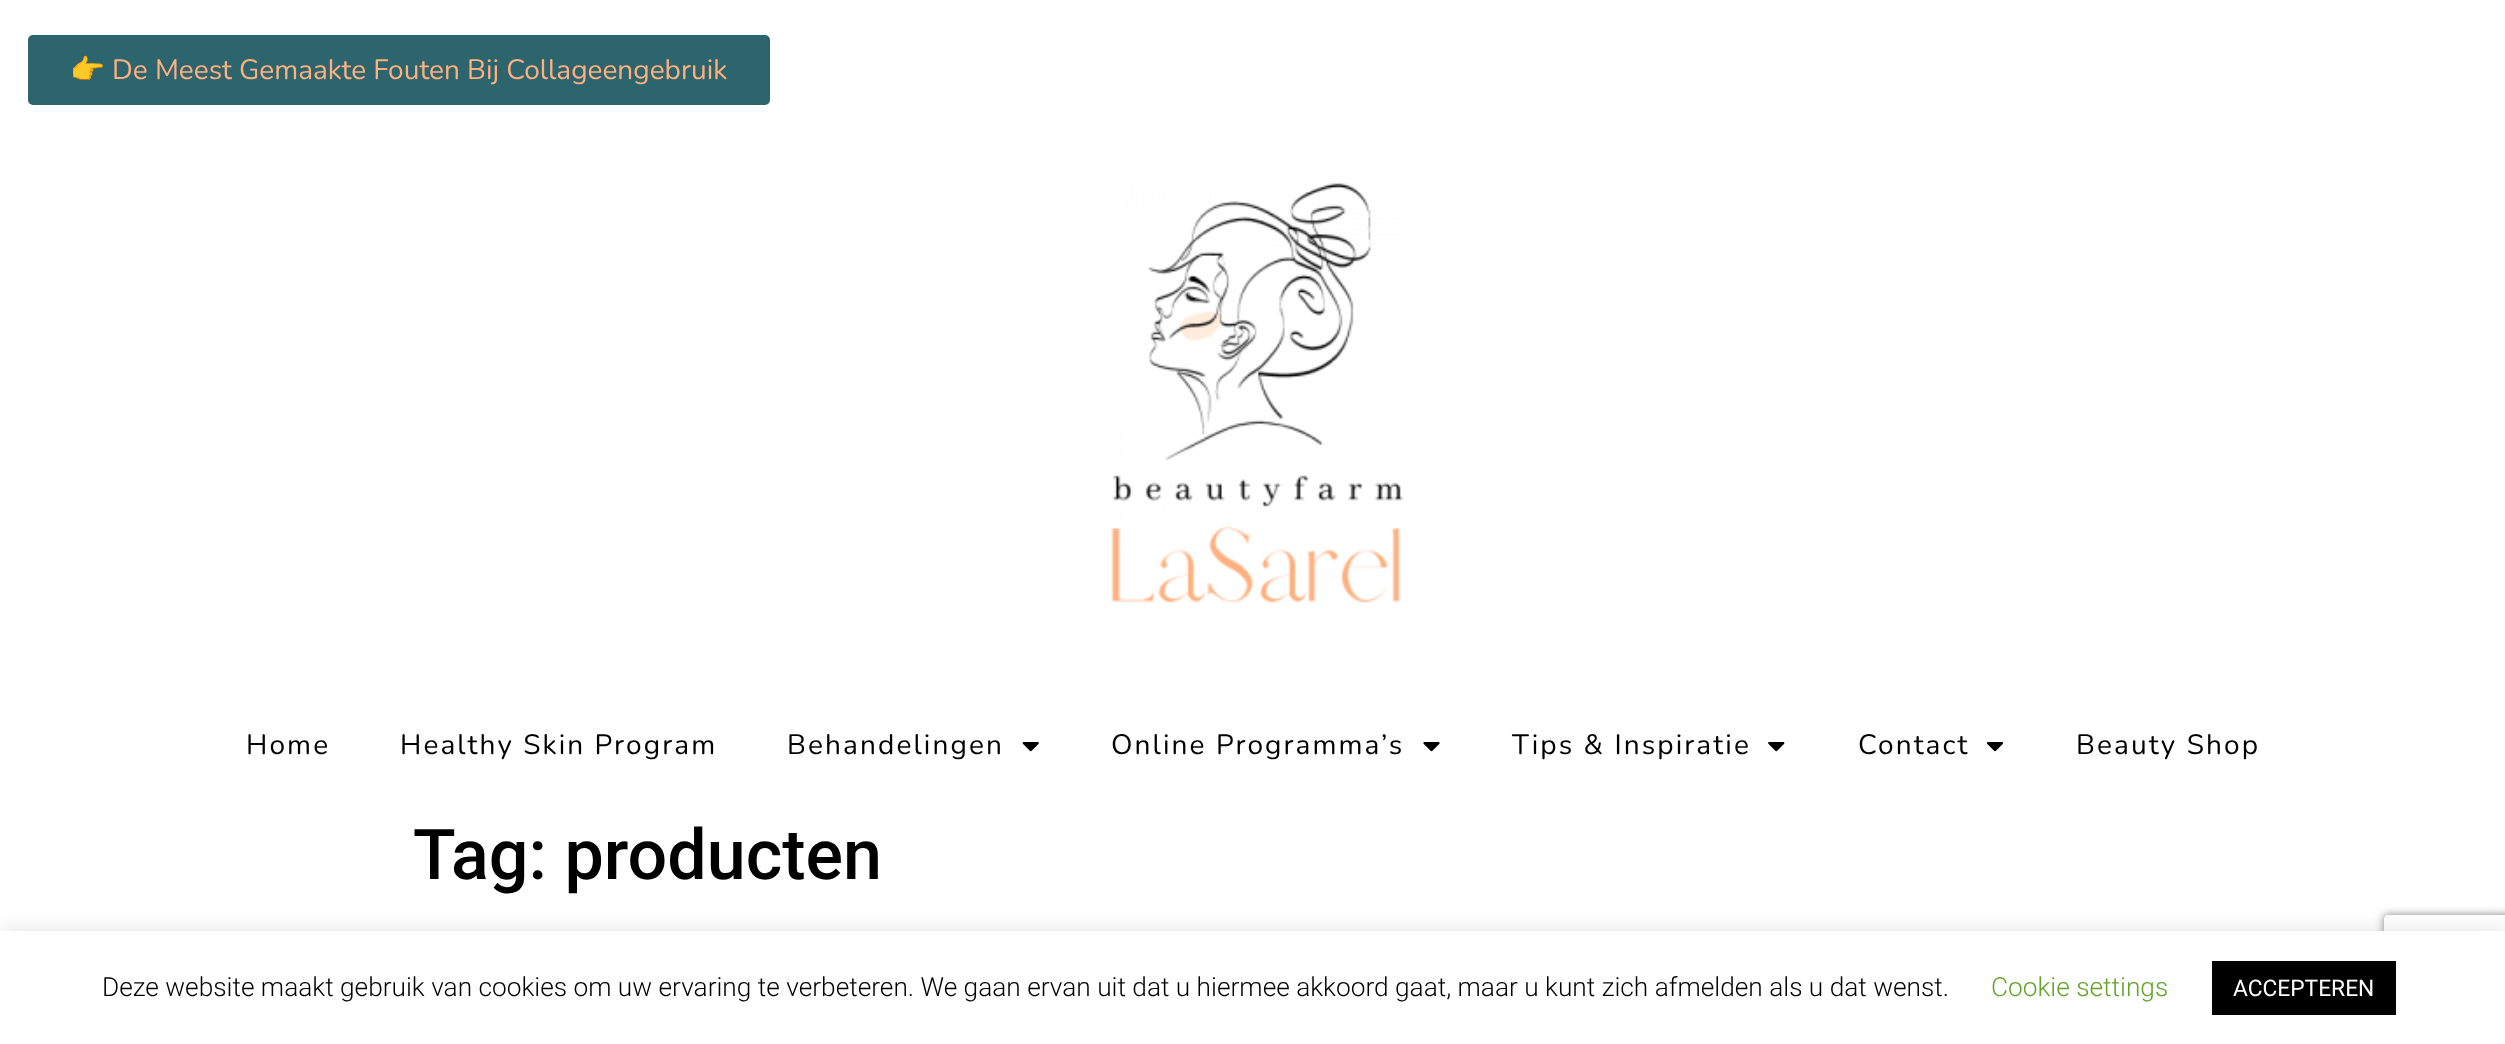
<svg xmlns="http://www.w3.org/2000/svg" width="2505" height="1044">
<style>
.a{font:28px Noto Color Emoji;fill:#ffb07f}
.b{font:28px Nunito;fill:#ffb07f}
.c{font:28px Nunito;letter-spacing:2.1px;fill:#000}
.d{font:500 70px Roboto;fill:#000}
.e{font:300 26.25px Roboto;fill:#000}
.f{font:300 26.25px Roboto;fill:#62a329}
.g{font:22.75px Roboto;fill:#fff}
</style>
<defs>
<clipPath id="clip1"><path d="M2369 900h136v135h-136zm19 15h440c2 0 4 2 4 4v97c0 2-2 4-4 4h-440c-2 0-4-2-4-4v-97c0-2 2-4 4-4z" clip-rule="evenodd"/></clipPath>
</defs>
<rect width="100%" height="100%" fill="#fff"/>
<rect fill="#2d656f" x="28" y="35" width="742" height="70" rx="5"/>
<image href="1.png" x="1111" y="183" width="293" height="420"/>
<image href="2.png" x="1022" y="742" width="17" height="10"/>
<image href="3.png" x="1423" y="742" width="17" height="10"/>
<image href="4.png" x="1768" y="742" width="17" height="10"/>
<image href="5.png" x="1986" y="742" width="18" height="10"/>
<path fill="#acabab4d" filter="blur(9px)" d="M0 929h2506v114H0z"/>
<g clip-path="url(#clip1)">
<rect fill="#808080" filter="blur(4.5px)" x="2384" y="915" width="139" height="105" rx="4"/>
</g>
<path fill="#fff" d="M0 931h2505v113H0z"/>
<path fill="#000" d="M2212 961h184v54H2212z"/>
<text class="a" x="70" y="79">👉</text>
<text class="b" x="112" y="79">De Meest Gemaakte Fouten Bij Collageengebruik</text>
<text class="c" x="246" y="754">Home</text>
<text class="c" x="400" y="754">Healthy Skin Program</text>
<text class="c" x="787" y="754">Behandelingen</text>
<text class="c" x="1111" y="754">Online Programma’s</text>
<text class="c" x="1512" y="754">Tips &amp; Inspiratie</text>
<text class="c" x="1858" y="754">Contact</text>
<text class="c" x="2076" y="754">Beauty Shop</text>
<text class="d" x="413" y="879">Tag: producten</text>
<text class="e" x="102" y="996">Deze website maakt gebruik van cookies om uw ervaring te verbeteren. We gaan ervan uit dat u hiermee akkoord gaat, maar u kunt zich afmelden als u dat wenst.</text>
<text class="f" x="1991" y="996">Cookie settings</text>
<text class="g" x="2233" y="996">ACCEPTEREN</text>
</svg>
